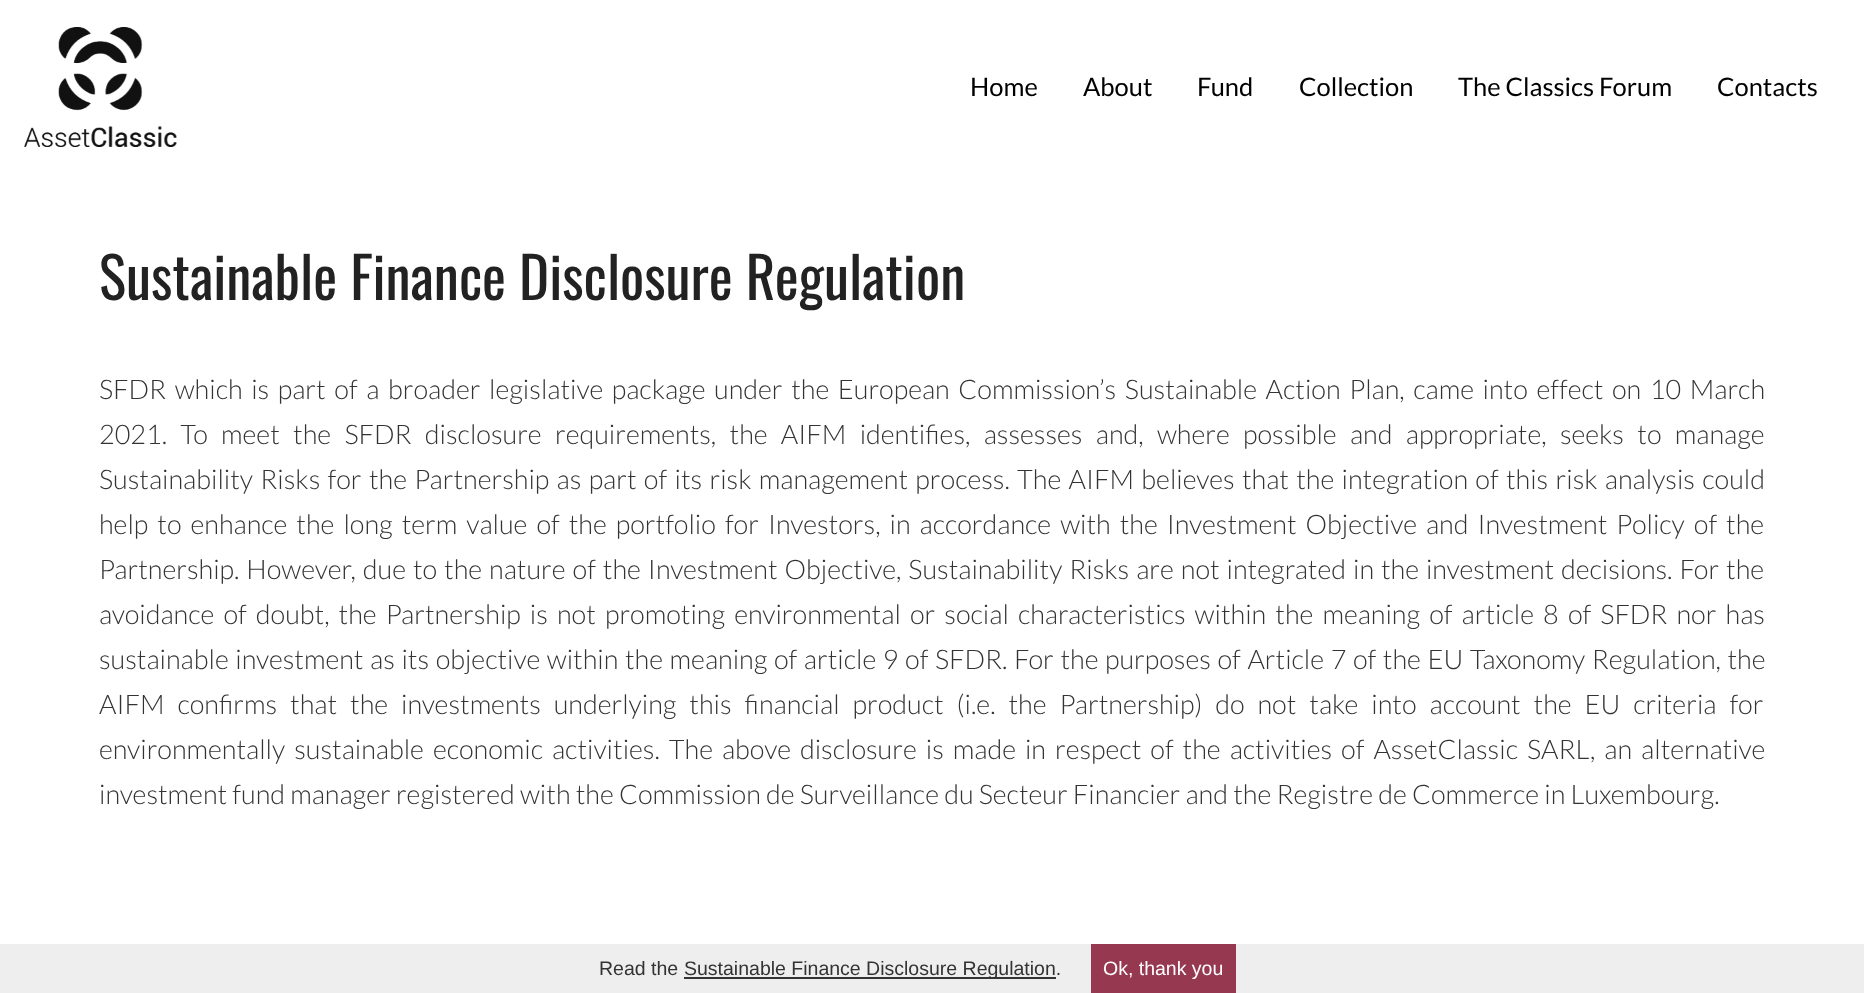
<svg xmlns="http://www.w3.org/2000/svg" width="1864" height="993">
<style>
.a{font:25.5px Lato;fill:#000}
.b{font:57px Oswald;fill:#222}
.c{font:300 27px Lato;fill:#333}
.d{font:19.5px Liberation Sans;fill:#333}
.e{font:19.5px Liberation Sans;fill:#fff}
</style>
<rect width="100%" height="100%" fill="#fff"/>
<image href="1.png" x="24" y="27" width="153" height="120"/>
<path fill="#eee" d="M0 944h1864v49H0z"/>
<path fill="#333" d="M684 977h372v2H684z"/>
<path fill="#973851" d="M1091 944h145v49H1091z"/>
<text class="a" x="970" y="96">Home</text>
<text class="a" x="1083" y="96">About</text>
<text class="a" x="1197" y="96">Fund</text>
<text class="a" x="1299" y="96">Collection</text>
<text class="a" x="1458" y="96">The Classics Forum</text>
<text class="a" x="1717" y="96">Contacts</text>
<text class="b" x="99" y="300">Sustainable Finance Disclosure Regulation</text>
<text class="c" x="99" y="399" word-spacing="3.4">SFDR which is part of a broader legislative package under the European Commission’s Sustainable Action Plan, came into effect on 10 March</text>
<text class="c" x="99" y="444" word-spacing="8.1">2021. To meet the SFDR disclosure requirements, the AIFM identifies, assesses and, where possible and appropriate, seeks to manage</text>
<text class="c" x="99" y="489" word-spacing="2.1">Sustainability Risks for the Partnership as part of its risk management process. The AIFM believes that the integration of this risk analysis could</text>
<text class="c" x="99" y="534" word-spacing="3.8">help to enhance the long term value of the portfolio for Investors, in accordance with the Investment Objective and Investment Policy of the</text>
<text class="c" x="99" y="579" word-spacing="1.75">Partnership. However, due to the nature of the Investment Objective, Sustainability Risks are not integrated in the investment decisions. For the</text>
<text class="c" x="99" y="624" word-spacing="3.9">avoidance of doubt, the Partnership is not promoting environmental or social characteristics within the meaning of article 8 of SFDR nor has</text>
<text class="c" x="99" y="669" word-spacing="1.4">sustainable investment as its objective within the meaning of article 9 of SFDR. For the purposes of Article 7 of the EU Taxonomy Regulation, the</text>
<text class="c" x="99" y="714" word-spacing="7.75">AIFM confirms that the investments underlying this financial product (i.e. the Partnership) do not take into account the EU criteria for</text>
<text class="c" x="99" y="759" word-spacing="3.8">environmentally sustainable economic activities. The above disclosure is made in respect of the activities of AssetClassic SARL, an alternative</text>
<text class="c" x="99" y="804">investment fund manager registered with the Commission de Surveillance du Secteur Financier and the Registre de Commerce in Luxembourg.</text>
<text class="d" x="599" y="975">Read the</text>
<text class="d" x="684" y="975">Sustainable Finance Disclosure Regulation.</text>
<text class="e" x="1103" y="975">Ok, thank you</text>
</svg>
